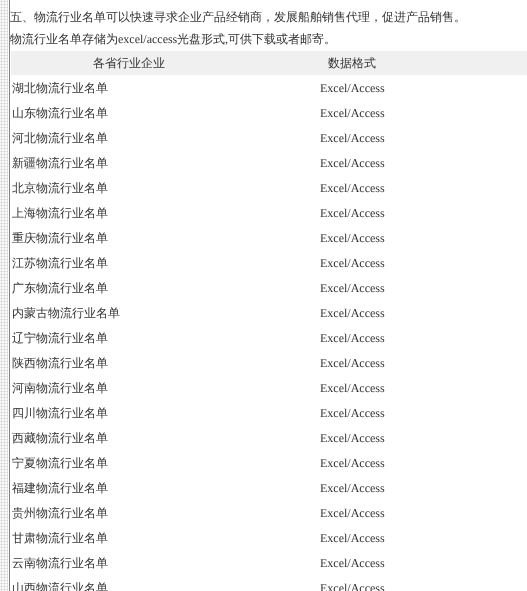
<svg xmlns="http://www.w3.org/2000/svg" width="527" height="591">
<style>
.a{font:500 12px WenQuanYi Zen Hei;fill:#333}
.b{font:12px Liberation Serif;fill:#333}
</style>
<rect width="100%" height="100%" fill="#fff"/>
<image href="1.png" x="0" y="0" width="8" height="591"/>
<path fill="none" stroke="#1ea0f6" d="M9.5 -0.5h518v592H9.5z"/>
<path fill="#f0f0f0" d="M11 51h516v24H11z"/>
<text class="a" x="10" y="21">五、物流行业名单可以快速寻求企业产品经销商，发展船舶销售代理，促进产品销售。</text>
<text class="a" x="10" y="43">物流行业名单存储为</text>
<text class="b" x="118" y="43">excel/access</text>
<text class="a" x="177" y="43">光盘形式</text>
<text class="b" x="225" y="43">,</text>
<text class="a" x="228" y="43">可供下载或者邮寄。</text>
<text class="a" x="93" y="67">各省行业企业</text>
<text class="a" x="328" y="67">数据格式</text>
<text class="a" x="12" y="92">湖北物流行业名单</text>
<text class="b" x="320" y="92">Excel/Access</text>
<text class="a" x="12" y="117">山东物流行业名单</text>
<text class="b" x="320" y="117">Excel/Access</text>
<text class="a" x="12" y="142">河北物流行业名单</text>
<text class="b" x="320" y="142">Excel/Access</text>
<text class="a" x="12" y="167">新疆物流行业名单</text>
<text class="b" x="320" y="167">Excel/Access</text>
<text class="a" x="12" y="192">北京物流行业名单</text>
<text class="b" x="320" y="192">Excel/Access</text>
<text class="a" x="12" y="217">上海物流行业名单</text>
<text class="b" x="320" y="217">Excel/Access</text>
<text class="a" x="12" y="242">重庆物流行业名单</text>
<text class="b" x="320" y="242">Excel/Access</text>
<text class="a" x="12" y="267">江苏物流行业名单</text>
<text class="b" x="320" y="267">Excel/Access</text>
<text class="a" x="12" y="292">广东物流行业名单</text>
<text class="b" x="320" y="292">Excel/Access</text>
<text class="a" x="12" y="317">内蒙古物流行业名单</text>
<text class="b" x="320" y="317">Excel/Access</text>
<text class="a" x="12" y="342">辽宁物流行业名单</text>
<text class="b" x="320" y="342">Excel/Access</text>
<text class="a" x="12" y="367">陕西物流行业名单</text>
<text class="b" x="320" y="367">Excel/Access</text>
<text class="a" x="12" y="392">河南物流行业名单</text>
<text class="b" x="320" y="392">Excel/Access</text>
<text class="a" x="12" y="417">四川物流行业名单</text>
<text class="b" x="320" y="417">Excel/Access</text>
<text class="a" x="12" y="442">西藏物流行业名单</text>
<text class="b" x="320" y="442">Excel/Access</text>
<text class="a" x="12" y="467">宁夏物流行业名单</text>
<text class="b" x="320" y="467">Excel/Access</text>
<text class="a" x="12" y="492">福建物流行业名单</text>
<text class="b" x="320" y="492">Excel/Access</text>
<text class="a" x="12" y="517">贵州物流行业名单</text>
<text class="b" x="320" y="517">Excel/Access</text>
<text class="a" x="12" y="542">甘肃物流行业名单</text>
<text class="b" x="320" y="542">Excel/Access</text>
<text class="a" x="12" y="567">云南物流行业名单</text>
<text class="b" x="320" y="567">Excel/Access</text>
<text class="a" x="12" y="592">山西物流行业名单</text>
<text class="b" x="320" y="592">Excel/Access</text>
</svg>
